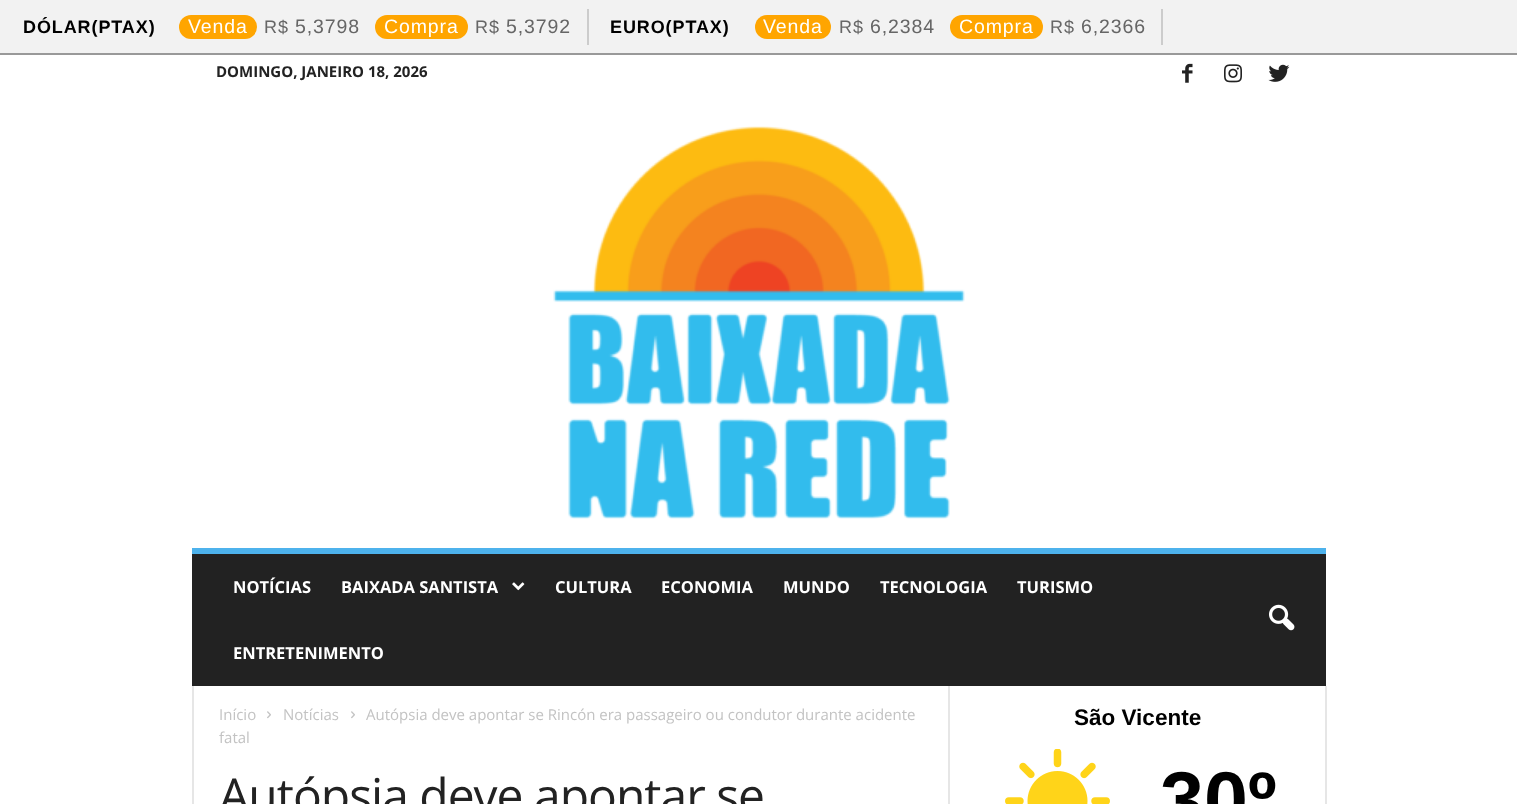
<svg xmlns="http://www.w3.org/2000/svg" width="1517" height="804">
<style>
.a{font:bold 18px Liberation Sans;letter-spacing:0.9px;fill:#000}
.b{font:19.5px Liberation Sans;letter-spacing:0.9px;fill:#fff}
.c{font:18px Liberation Sans;letter-spacing:0.9px;fill:#666}
.d{font:19.5px Liberation Sans;letter-spacing:0.9px;fill:#666}
.e{font:bold 15px Open Sans;fill:#222}
.f{font:bold 16.5px Open Sans;fill:#fff}
.g{font:15px Open Sans;fill:#c3c3c3}
.h{font:48px Open Sans;letter-spacing:-1px;fill:#222}
.i{font:bold 22.5px Liberation Sans;fill:#000}
.j{font:bold 79px Liberation Sans;fill:#000}
</style>
<rect width="100%" height="100%" fill="#fff"/>
<path fill="#f2f2f2" d="M0 0h1517v53H0z"/>
<path fill="#999" d="M0 53h1517v2H0z"/>
<path fill="#ccc" d="M587 9h2v36H587z"/>
<rect fill="#ffa500" x="179" y="15" width="78" height="24" rx="12"/>
<rect fill="#ffa500" x="375" y="15" width="93" height="24" rx="12"/>
<path fill="#ccc" d="M1161 9h2v36H1161z"/>
<rect fill="#ffa500" x="755" y="15" width="76" height="24" rx="12"/>
<rect fill="#ffa500" x="950" y="15" width="93" height="24" rx="12"/>
<image href="1.png" x="1182" y="63" width="11" height="20"/>
<image href="2.png" x="1224" y="64" width="18" height="19"/>
<image href="3.png" x="1268" y="64" width="22" height="18"/>
<image href="4.png" x="553" y="126" width="412" height="393"/>
<path fill="#222" d="M192 554h1134v132H192z"/>
<path fill="#4db2ec" d="M192 548h1134v6H192z"/>
<image href="5.png" x="512" y="582" width="13" height="9"/>
<image href="6.png" x="1269" y="604" width="26" height="27"/>
<path fill="#e6e6e6" d="M192 686h2v118H192z"/>
<image href="7.png" x="267" y="711" width="4" height="8"/>
<image href="7.png" x="351" y="711" width="4" height="8"/>
<path fill="#e6e6e6" d="M948 686h2v118H948z"/>
<image href="8.png" x="1005" y="749" width="105" height="55"/>
<path fill="#e6e6e6" d="M1325 686h2v118H1325z"/>
<text class="a" x="23" y="33">DÓLAR(PTAX)</text>
<text class="b" x="188" y="33">Venda</text>
<text class="c" x="264" y="33">R$</text>
<text class="d" x="295" y="33">5,3798</text>
<text class="b" x="384" y="33">Compra</text>
<text class="c" x="475" y="33">R$</text>
<text class="d" x="506" y="33">5,3792</text>
<text class="a" x="610" y="33">EURO(PTAX)</text>
<text class="b" x="763" y="33">Venda</text>
<text class="c" x="839" y="33">R$</text>
<text class="d" x="870" y="33">6,2384</text>
<text class="b" x="959" y="33">Compra</text>
<text class="c" x="1050" y="33">R$</text>
<text class="d" x="1081" y="33">6,2366</text>
<text class="e" x="216" y="77">DOMINGO, JANEIRO 18, 2026</text>
<text class="f" x="233" y="593">NOTÍCIAS</text>
<text class="f" x="341" y="593">BAIXADA SANTISTA</text>
<text class="f" x="555" y="593">CULTURA</text>
<text class="f" x="661" y="593">ECONOMIA</text>
<text class="f" x="783" y="593">MUNDO</text>
<text class="f" x="880" y="593">TECNOLOGIA</text>
<text class="f" x="1017" y="593">TURISMO</text>
<text class="f" x="233" y="659">ENTRETENIMENTO</text>
<text class="g" x="219" y="720">Início</text>
<text class="g" x="283" y="720">Notícias</text>
<text class="g" x="366" y="720">Autópsia deve apontar se Rincón era passageiro ou condutor durante acidente</text>
<text class="g" x="219" y="743">fatal</text>
<text class="h" x="219" y="813">Autópsia deve apontar se</text>
<text class="i" x="1074" y="725">São Vicente</text>
<text class="j" x="1160" y="827">30º</text>
</svg>
